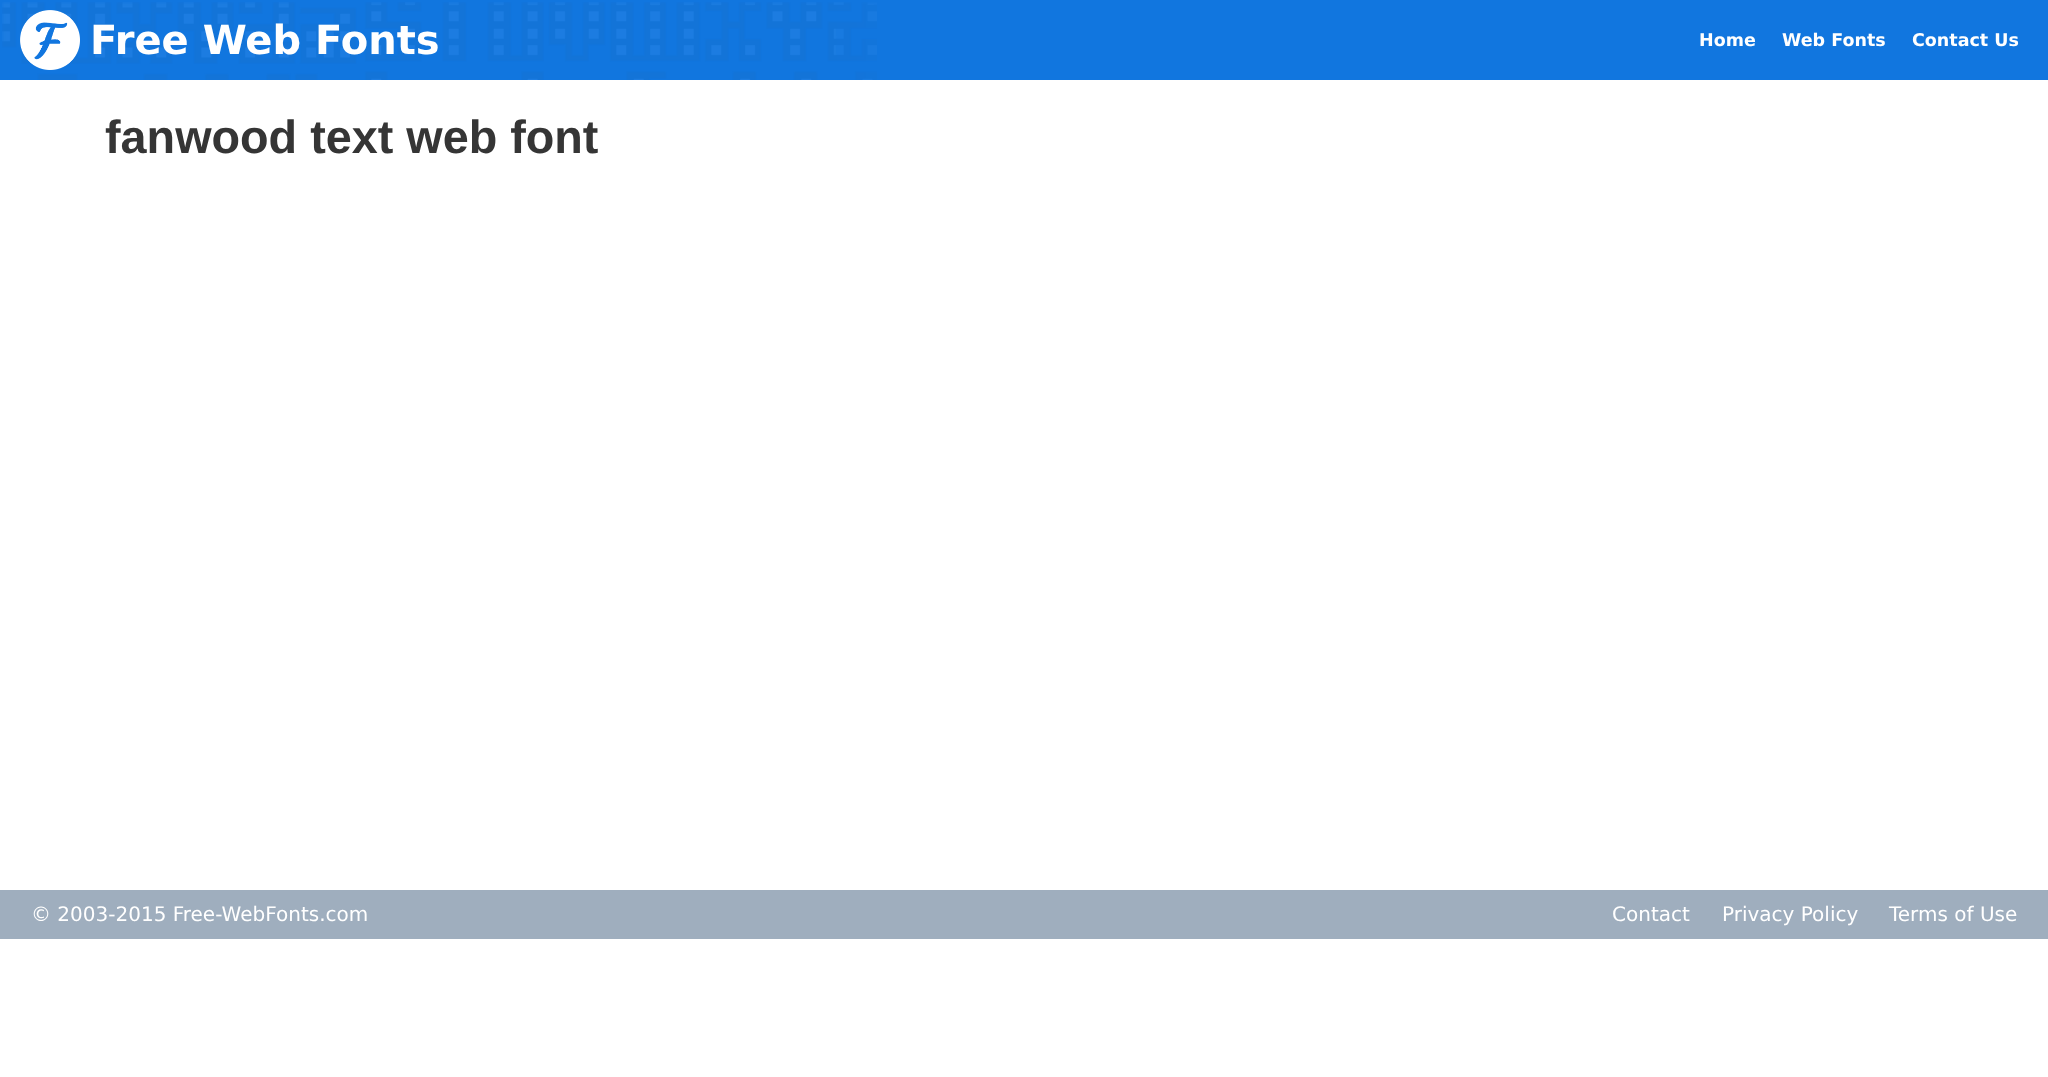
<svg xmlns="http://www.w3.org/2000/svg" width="2048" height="1077">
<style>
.a{font:bold 40px DejaVu Sans;fill:#fff}
.b{font:bold 17.5px DejaVu Sans;fill:#fff}
.c{font:bold 46.75px Liberation Sans;fill:#353535}
.d{font:20px DejaVu Sans;fill:#fff}
</style>
<rect width="100%" height="100%" fill="#fff"/>
<path fill="#1176df" d="M0 0h2048v80H0z"/>
<image href="1.png" x="2" y="2" width="875" height="78"/>
<image href="2.png" x="20" y="10" width="60" height="60"/>
<path fill="#9faebe" d="M0 890h2048v49H0z"/>
<text class="a" x="90" y="54">Free Web Fonts</text>
<text class="b" x="1699" y="46">Home</text>
<text class="b" x="1782" y="46">Web Fonts</text>
<text class="b" x="1912" y="46">Contact Us</text>
<text class="c" x="105" y="153">fanwood text web font</text>
<text class="d" x="31" y="921">© 2003-2015 Free-WebFonts.com</text>
<text class="d" x="1612" y="921">Contact</text>
<text class="d" x="1722" y="921">Privacy Policy</text>
<text class="d" x="1889" y="921">Terms of Use</text>
</svg>
